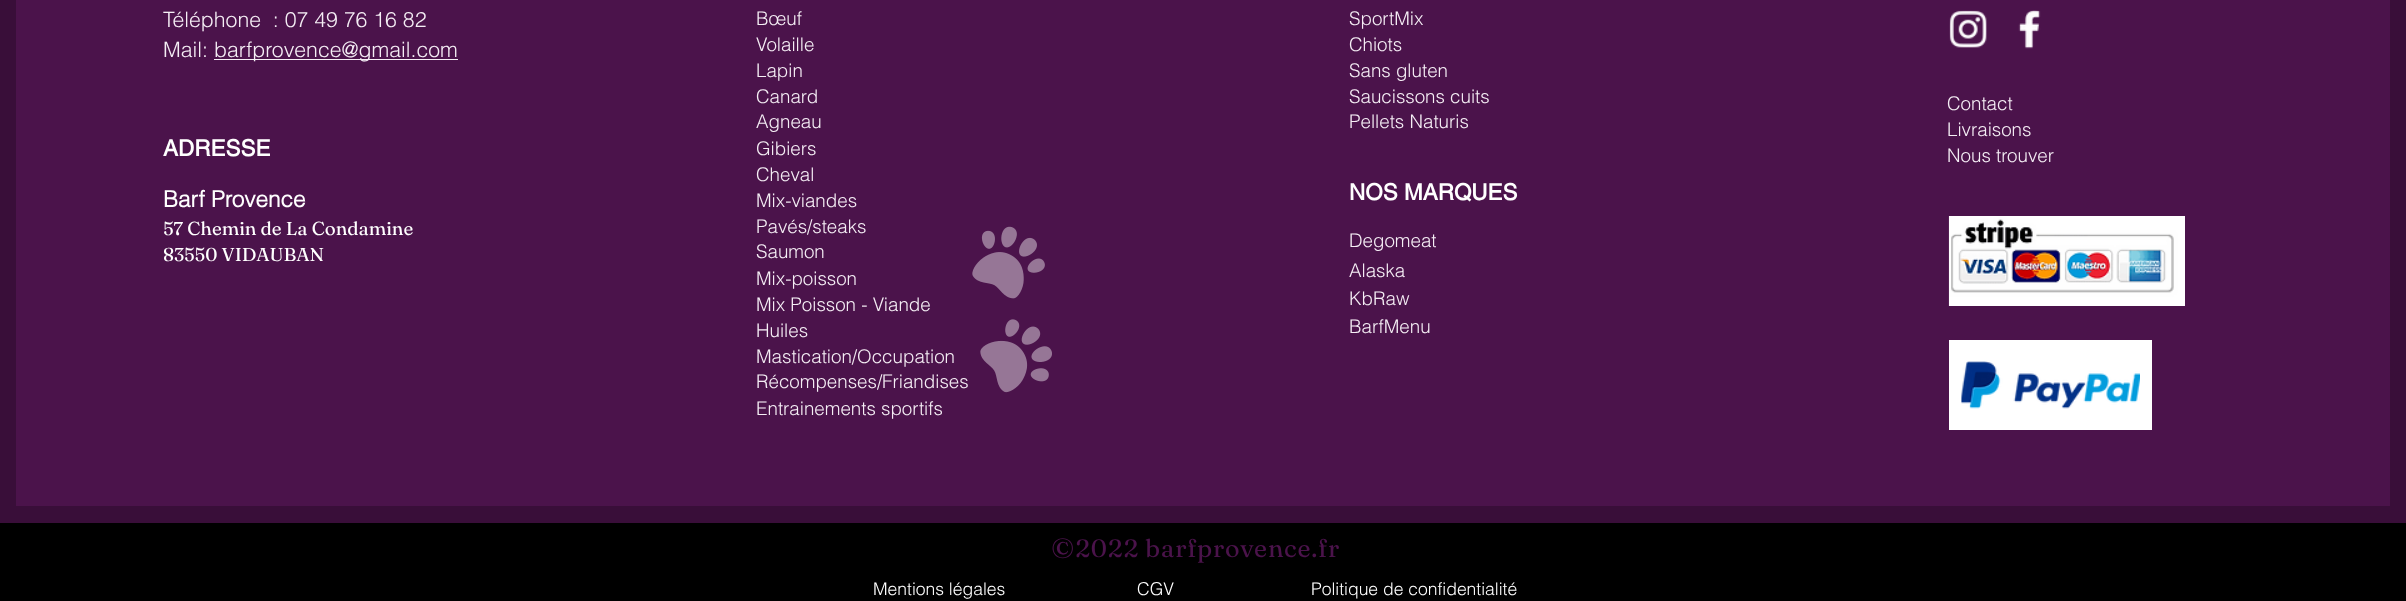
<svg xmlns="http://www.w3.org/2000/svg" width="2406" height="601">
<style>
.a{font:300 21.25px helvetica;fill:#f5eef5}
.b{font:bold 22.5px helvetica;fill:#fff}
.c{font:bold 22.5px 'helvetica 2';fill:#fff}
.d{font:18.75px Fraunces;fill:#fff}
.e{font:300 18.75px helvetica;fill:#f5eef5}
.f{font:25px Fraunces;letter-spacing:0.75px;fill:#4b134b}
.g{font:300 17.5px helvetica;fill:#fff}
</style>
<rect width="100%" height="100%" fill="#000"/>
<path fill="#390e39" d="M0 0h2406v523H0z"/>
<path fill="#4b134b" d="M16 0h2374v506H16z"/>
<path fill="#f5eef5" d="M214 59h244v1H214z"/>
<image href="1.png" x="972" y="226" width="80" height="167"/>
<image href="2.png" x="1949" y="10" width="38" height="38"/>
<image href="3.png" x="2018" y="10" width="23" height="39"/>
<image href="4.png" x="1948" y="216" width="237" height="90"/>
<path fill="#fff" d="M1949 340h203v90H1949z"/>
<image href="5.png" x="1961" y="361" width="179" height="48"/>
<text class="a" xml:space="preserve" x="163" y="27">Téléphone  : 07 49 76 16 82</text>
<text class="a" x="163" y="57">Mail:</text>
<text class="a" x="214" y="57">barfprovence@gmail.com</text>
<text class="b" x="163" y="156">ADRESSE</text>
<text class="c" x="163" y="207">Barf Provence</text>
<text class="d" x="163" y="235">57 Chemin de La Condamine</text>
<text class="d" x="163" y="261">83550 VIDAUBAN</text>
<text class="e" x="756" y="25">Bœuf</text>
<text class="e" x="756" y="51">Volaille</text>
<text class="e" x="756" y="77">Lapin</text>
<text class="e" x="756" y="103">Canard</text>
<text class="e" x="756" y="128">Agneau</text>
<text class="e" x="756" y="155">Gibiers</text>
<text class="e" x="756" y="181">Cheval</text>
<text class="e" x="756" y="207">Mix-viandes</text>
<text class="e" x="756" y="233">Pavés/steaks</text>
<text class="e" x="756" y="258">Saumon</text>
<text class="e" x="756" y="285">Mix-poisson</text>
<text class="e" x="756" y="311">Mix Poisson - Viande</text>
<text class="e" x="756" y="337">Huiles</text>
<text class="e" x="756" y="363">Mastication/Occupation</text>
<text class="e" x="756" y="388">Récompenses/Friandises</text>
<text class="e" x="756" y="415">Entrainements sportifs</text>
<text class="e" x="1349" y="25">SportMix</text>
<text class="e" x="1349" y="51">Chiots</text>
<text class="e" x="1349" y="77">Sans gluten</text>
<text class="e" x="1349" y="103">Saucissons cuits</text>
<text class="e" x="1349" y="128">Pellets Naturis</text>
<text class="b" x="1349" y="200">NOS MARQUES</text>
<text class="e" x="1349" y="247">Degomeat</text>
<text class="e" x="1349" y="277">Alaska</text>
<text class="e" x="1349" y="305">KbRaw</text>
<text class="e" x="1349" y="333">BarfMenu</text>
<text class="e" x="1947" y="110">Contact</text>
<text class="e" x="1947" y="136">Livraisons</text>
<text class="e" x="1947" y="162">Nous trouver</text>
<text class="f" x="1051" y="557">©2022 barfprovence.fr</text>
<text class="g" x="873" y="595">Mentions légales</text>
<text class="g" x="1137" y="595">CGV</text>
<text class="g" x="1311" y="595">Politique de confidentialité</text>
</svg>
